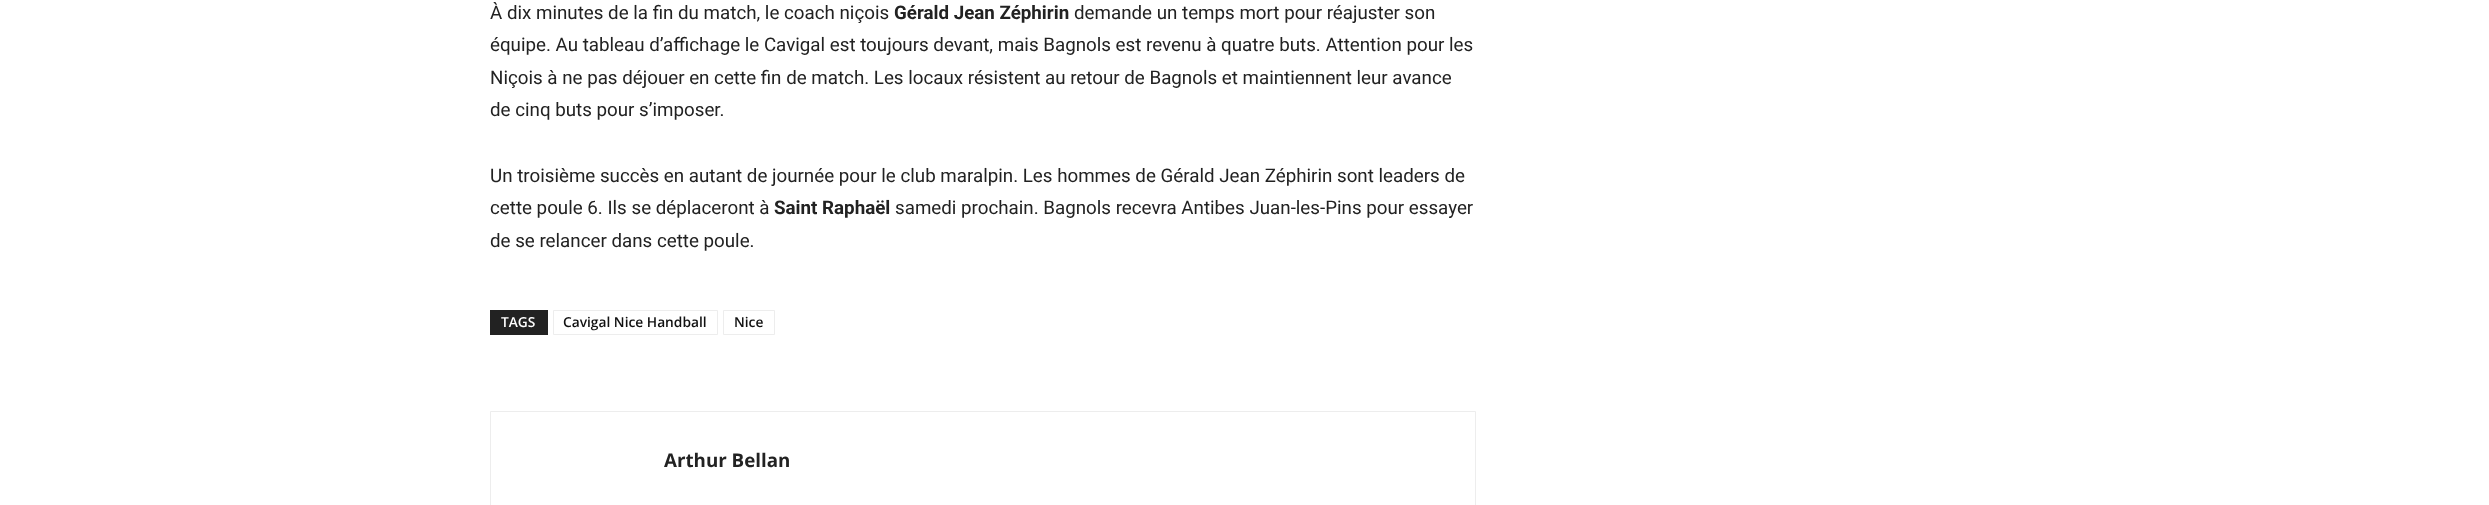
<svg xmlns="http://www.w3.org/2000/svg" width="2489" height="505">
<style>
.a{font:18.75px Roboto;fill:#222}
.b{font:bold 18.75px Roboto;fill:#222}
.c{font:600 13.75px Open Sans;fill:#fff}
.d{font:600 13.75px Open Sans;fill:#111}
.e{font:bold 18.75px Open Sans;fill:#222}
</style>
<rect width="100%" height="100%" fill="#fff"/>
<path fill="#222" d="M490 310h58v25H490z"/>
<path fill="none" stroke="#ededed" d="M553.5 310.5h164v24H553.5z"/>
<path fill="none" stroke="#ededed" d="M723.5 310.5h51v24H723.5z"/>
<path fill="none" stroke="#ededed" d="M490.5 411.5h985v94H490.5z"/>
<text class="a" x="490" y="19">À dix minutes de la fin du match, le coach niçois</text>
<text class="b" x="894" y="19">Gérald Jean Zéphirin</text>
<text class="a" x="1074" y="19">demande un temps mort pour réajuster son</text>
<text class="a" x="490" y="51">équipe. Au tableau d’affichage le Cavigal est toujours devant, mais Bagnols est revenu à quatre buts. Attention pour les</text>
<text class="a" x="490" y="84">Niçois à ne pas déjouer en cette fin de match. Les locaux résistent au retour de Bagnols et maintiennent leur avance</text>
<text class="a" x="490" y="116">de cinq buts pour s’imposer.</text>
<text class="a" x="490" y="182">Un troisième succès en autant de journée pour le club maralpin. Les hommes de Gérald Jean Zéphirin sont leaders de</text>
<text class="a" x="490" y="214">cette poule 6. Ils se déplaceront à</text>
<text class="b" x="774" y="214">Saint Raphaël</text>
<text class="a" x="895" y="214">samedi prochain. Bagnols recevra Antibes Juan-les-Pins pour essayer</text>
<text class="a" x="490" y="247">de se relancer dans cette poule.</text>
<text class="c" x="501" y="327">TAGS</text>
<text class="d" x="563" y="327">Cavigal Nice Handball</text>
<text class="d" x="734" y="327">Nice</text>
<text class="e" x="664" y="467">Arthur Bellan</text>
</svg>
